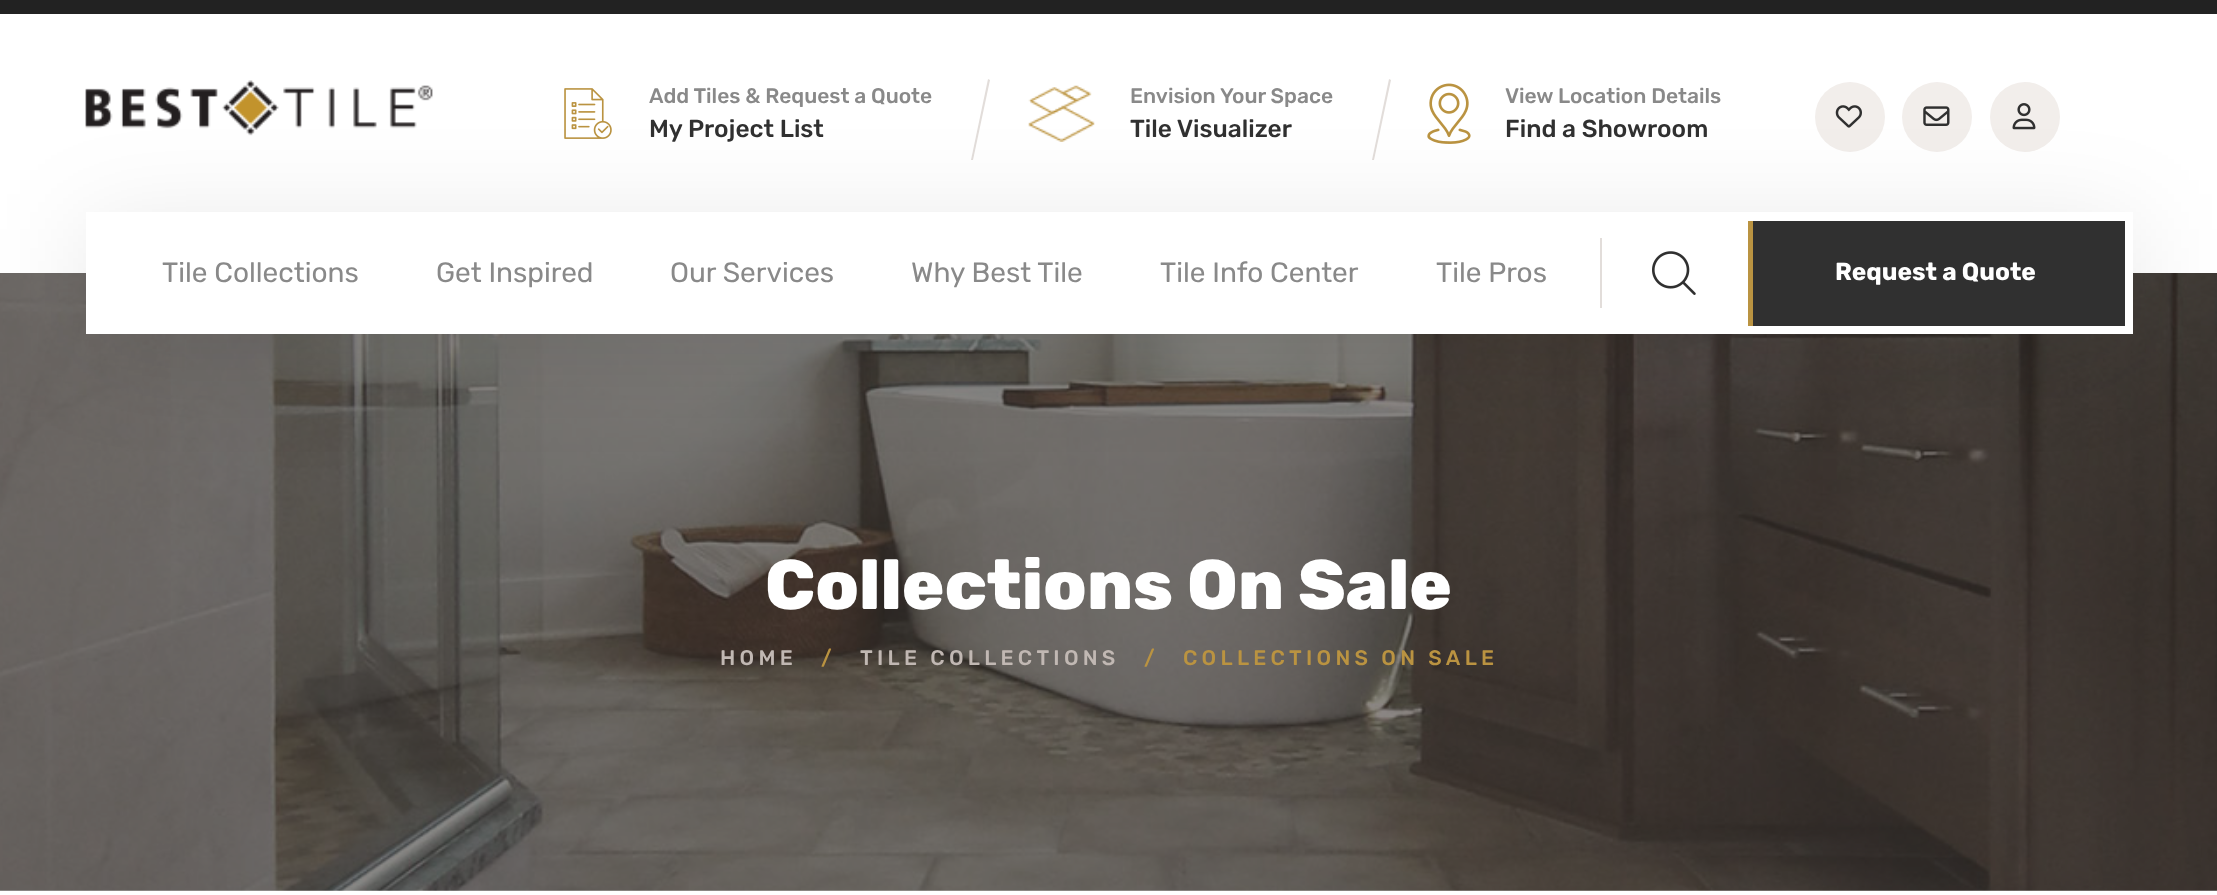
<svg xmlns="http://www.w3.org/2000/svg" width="2217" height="895">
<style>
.a{font:500 21px Rubik;fill:#898989}
.b{font:500 24.5px Rubik;fill:#303030}
.c{font:28px Rubik;fill:#898989}
.d{font:bold 24.5px Rubik;fill:#fff}
.e{font:800 70px Rubik;fill:#fff}
.f{font:500 21px Rubik;letter-spacing:4.25px;fill:#c1b8b3}
.g{font:500 21px Rubik;letter-spacing:4.25px;fill:#ba9341}
</style>
<rect width="100%" height="100%" fill="#fff"/>
<path fill="#222" d="M0 0h2217v14H0z"/>
<image href="1.png" x="85" y="80" width="348" height="56"/>
<image href="2.png" x="564" y="88" width="48" height="51"/>
<path fill="#e2ddda" d="M988 79l2 1l-17 80h-2z"/>
<image href="3.png" x="1028" y="85" width="67" height="57"/>
<path fill="#e2ddda" d="M1389 79l2 1l-17 80h-2z"/>
<image href="4.png" x="1427" y="83" width="44" height="61"/>
<circle fill="#f2eeeb" cx="1850" cy="117" r="35"/>
<image href="5.png" x="1835" y="105" width="27" height="23"/>
<circle fill="#f2eeeb" cx="1937" cy="117" r="35"/>
<image href="6.png" x="1923" y="106" width="27" height="20"/>
<circle fill="#f2eeeb" cx="2025" cy="117" r="35"/>
<image href="7.png" x="2012" y="103" width="24" height="27"/>
<image href="9.png" x="0" y="273" width="2217" height="618"/>
<path fill="#0000001a" filter="blur(52.5px)" d="M86 229h2047v123H86z"/>
<path fill="#fff" d="M86 212h2047v122H86z"/>
<path fill="#e2ddda" d="M1600 238h2v70H1600z"/>
<image href="8.png" x="1652" y="251" width="44" height="44"/>
<path fill="#303030" d="M1753 221h372v105H1753z"/>
<path fill="#ba9341" d="M1748 221h5v105H1748z"/>
<text class="a" x="649" y="103">Add Tiles &amp; Request a Quote</text>
<text class="b" x="649" y="137">My Project List</text>
<text class="a" x="1130" y="103">Envision Your Space</text>
<text class="b" x="1130" y="137">Tile Visualizer</text>
<text class="a" x="1505" y="103">View Location Details</text>
<text class="b" x="1505" y="137">Find a Showroom</text>
<text class="c" x="162" y="282">Tile Collections</text>
<text class="c" x="436" y="282">Get Inspired</text>
<text class="c" x="670" y="282">Our Services</text>
<text class="c" x="911" y="282">Why Best Tile</text>
<text class="c" x="1160" y="282">Tile Info Center</text>
<text class="c" x="1436" y="282">Tile Pros</text>
<text class="d" x="1835" y="280">Request a Quote</text>
<text class="e" x="765" y="609">Collections On Sale</text>
<text class="f" x="720" y="665">HOME</text>
<text class="g" x="821" y="665">/</text>
<text class="f" x="860" y="665">TILE COLLECTIONS</text>
<text class="g" x="1144" y="665">/</text>
<text class="g" x="1183" y="665">COLLECTIONS ON SALE</text>
</svg>
